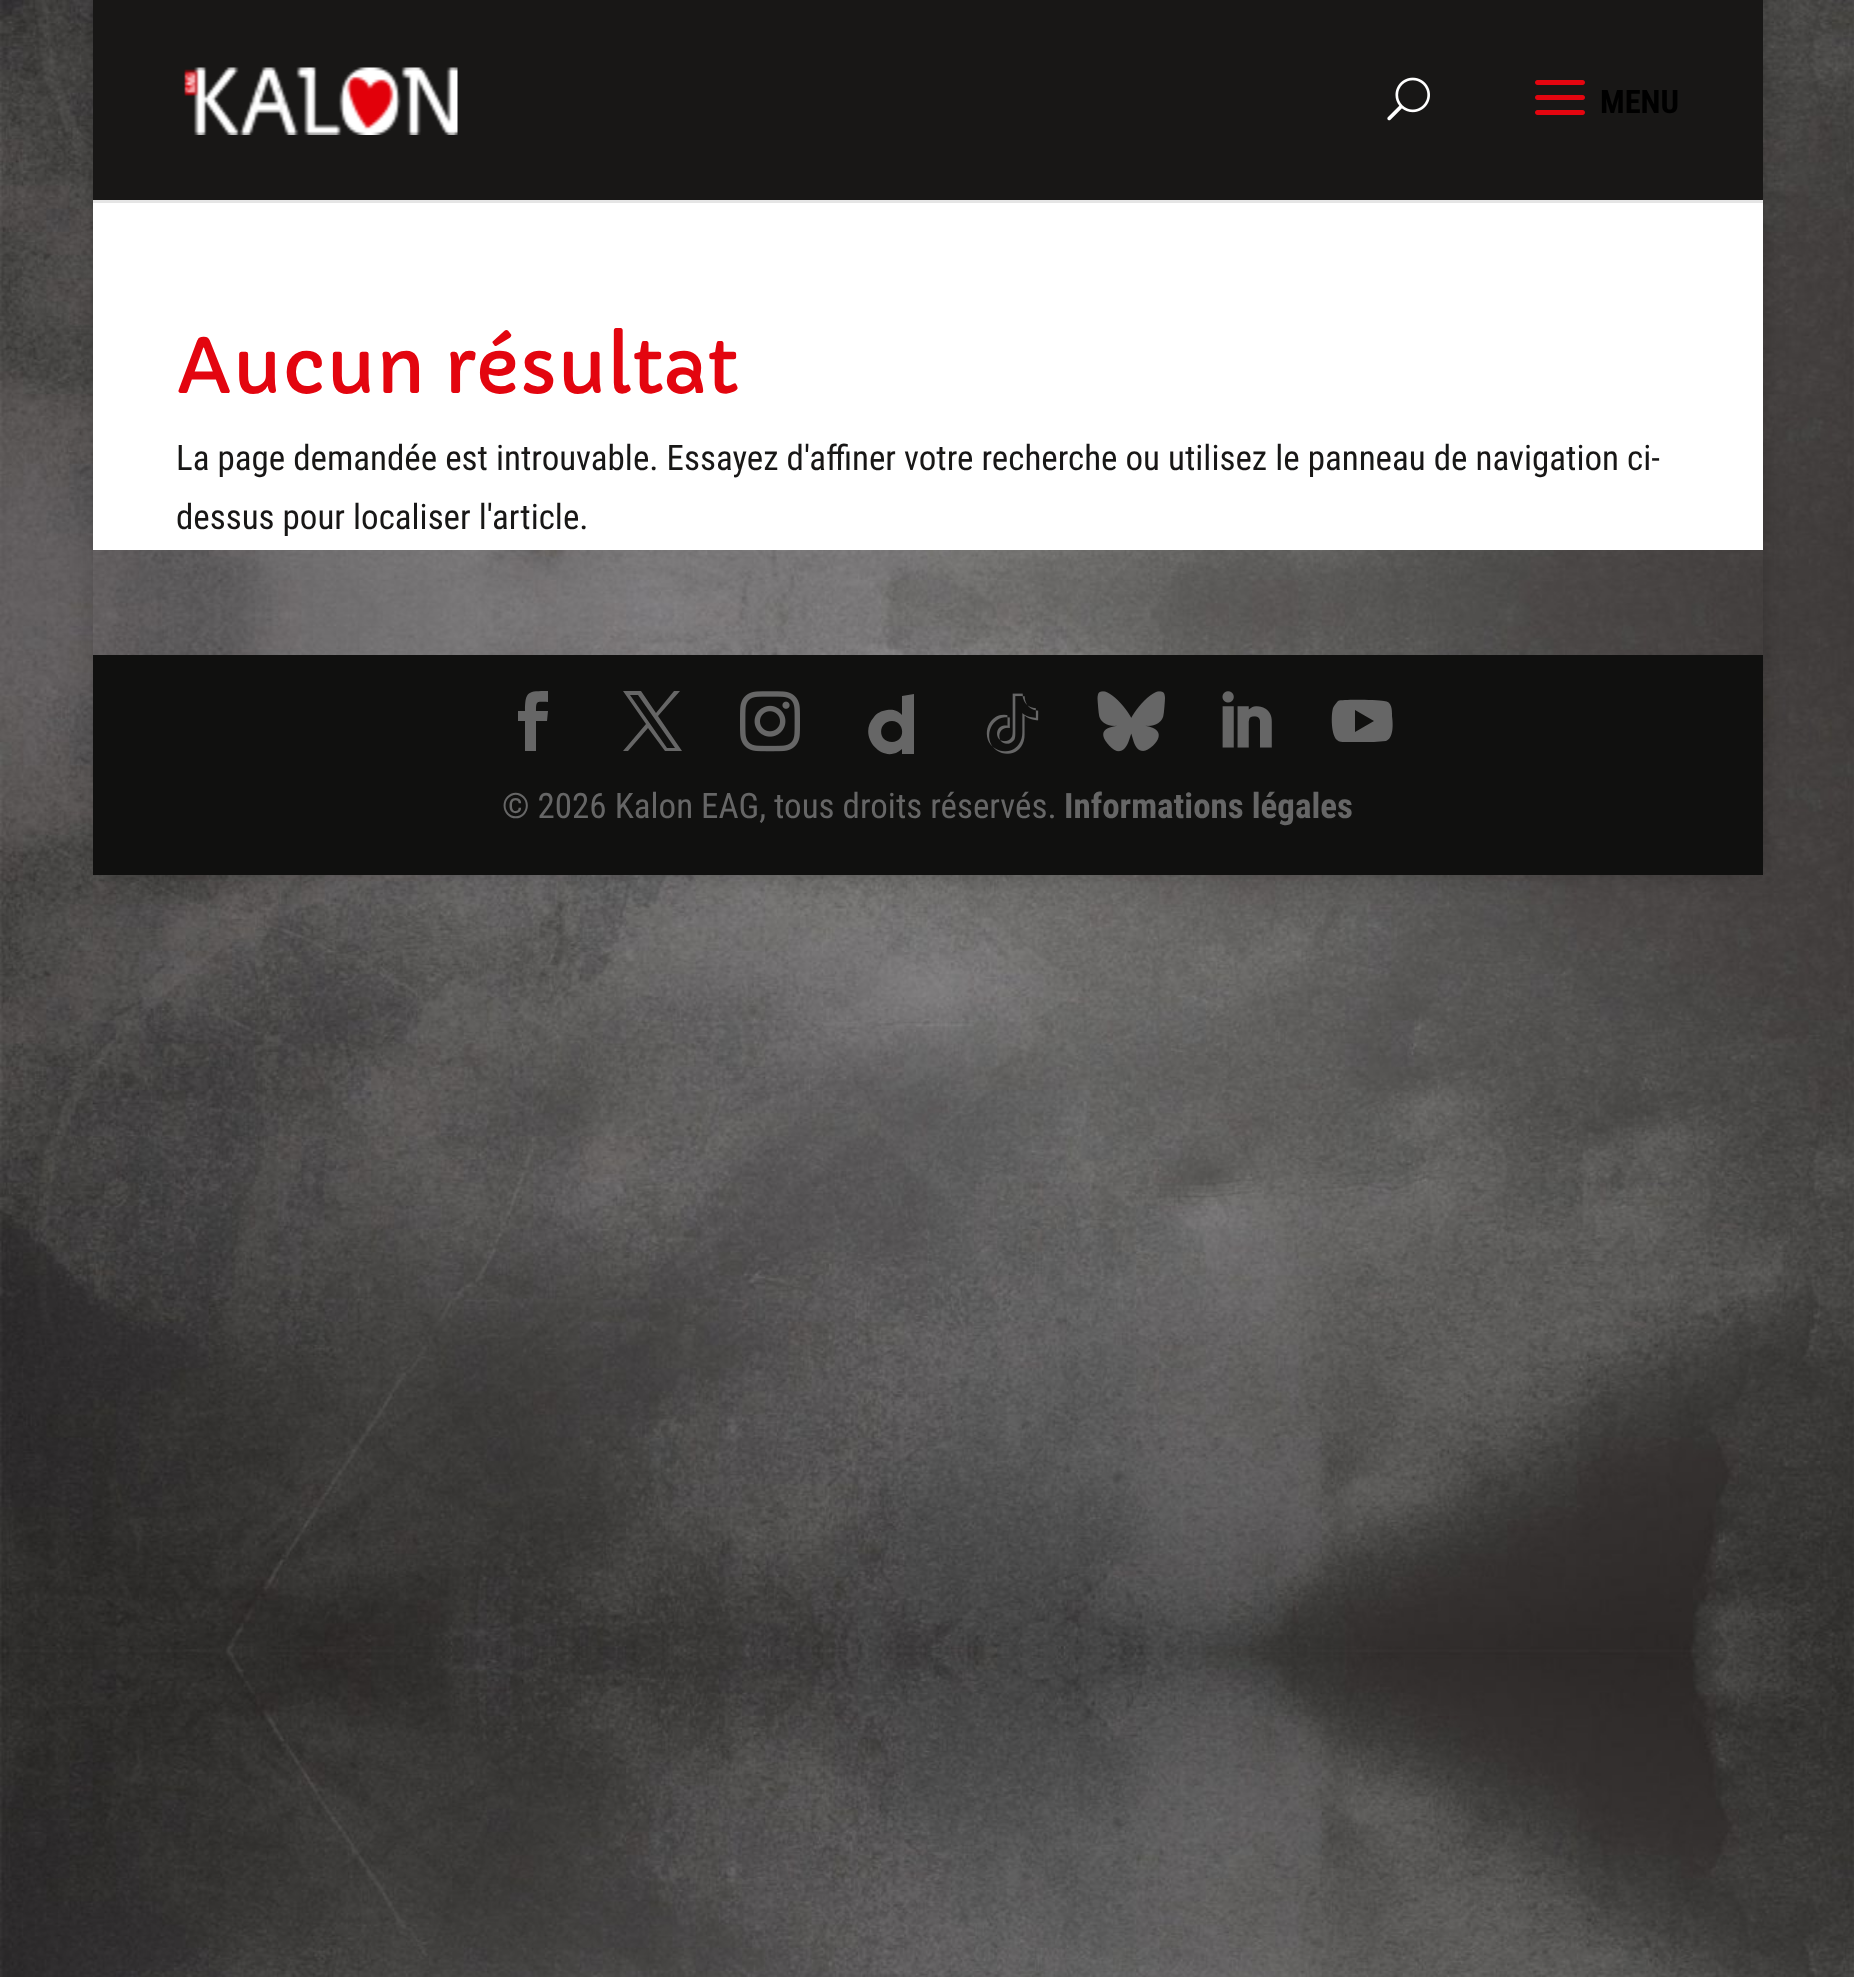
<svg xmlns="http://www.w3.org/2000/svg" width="1854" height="1977">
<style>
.a{font:bold 32.5px Roboto Condensed;fill:#000}
.b{font:75px Capriola;fill:#e3050f}
.c{font:35px Roboto Condensed;fill:#181716}
.d{font:35px Roboto Condensed;fill:#666}
.e{font:bold 35px Roboto Condensed;fill:#666}
</style>
<defs>
<clipPath id="clip1"><path d="M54 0h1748v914h-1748zm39 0h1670v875h-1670z" clip-rule="evenodd"/></clipPath>
</defs>
<rect width="100%" height="100%" fill="#fff"/>
<image href="1.png" x="0" y="0" width="1854" height="1977"/>
<g clip-path="url(#clip1)">
<path fill="#00000033" filter="blur(12.5px)" d="M93 0h1670v875H93z"/>
</g>
<path fill="#fff" d="M93 200h1670v350H93z"/>
<path fill="#0000001a" d="M93 200v3h1670v-200h-1v197z"/>
<path fill="#181716" d="M93 0h1670v200H93z"/>
<image href="2.png" x="184" y="67" width="274" height="68"/>
<image href="3.png" x="1387" y="77" width="43" height="44"/>
<image href="4.png" x="1535" y="80" width="50" height="35"/>
<path fill="#10100f" d="M93 655h1670v220H93z"/>
<path fill="#666" d="M525 751h11v-30h11l1-10h-12c0-11 1-9 12-9v-11c-20 0-23 0-23 20h-7v10h7z"/>
<path fill="#666" d="M623 691l23 33l-23 27h5l20-23l17 23h17l-24-35l22-25h-6l-18 22l-15-22zm7 4h8l37 53h-8z"/>
<image href="5.png" x="740" y="691" width="60" height="61"/>
<path fill="#666" d="M914 694l-12 2v19c-4-5-10-6-15-5c-6 1-10 3-13 7c-18 20 10 49 28 32v5h12zm-22 48c-15 0-14-21 0-21c13 0 14 21 0 21z"/>
<image href="6.png" x="986" y="693" width="53" height="61"/>
<image href="7.png" x="1097" y="691" width="68" height="61"/>
<image href="8.png" x="1222" y="691" width="50" height="57"/>
<path fill="#666" d="M1384 701c-7-1-40-2-46 0c-2 2-4 5-5 7c-2 7-2 27 4 32c2 2 5 2 8 2h29l12-1c8-3 7-18 6-25c0-6 0-15-8-15zm-29 31v-22l19 11z"/>
<text class="a" x="1600" y="113">MENU</text>
<text class="b" x="176" y="393">Aucun résultat</text>
<text class="c" x="176" y="470">La page demandée est introuvable. Essayez d'affiner votre recherche ou utilisez le panneau de navigation ci-</text>
<text class="c" x="176" y="529">dessus pour localiser l'article.</text>
<text class="d" x="502" y="818">© 2026 Kalon EAG, tous droits réservés.</text>
<text class="e" x="1064" y="818">Informations légales</text>
</svg>
